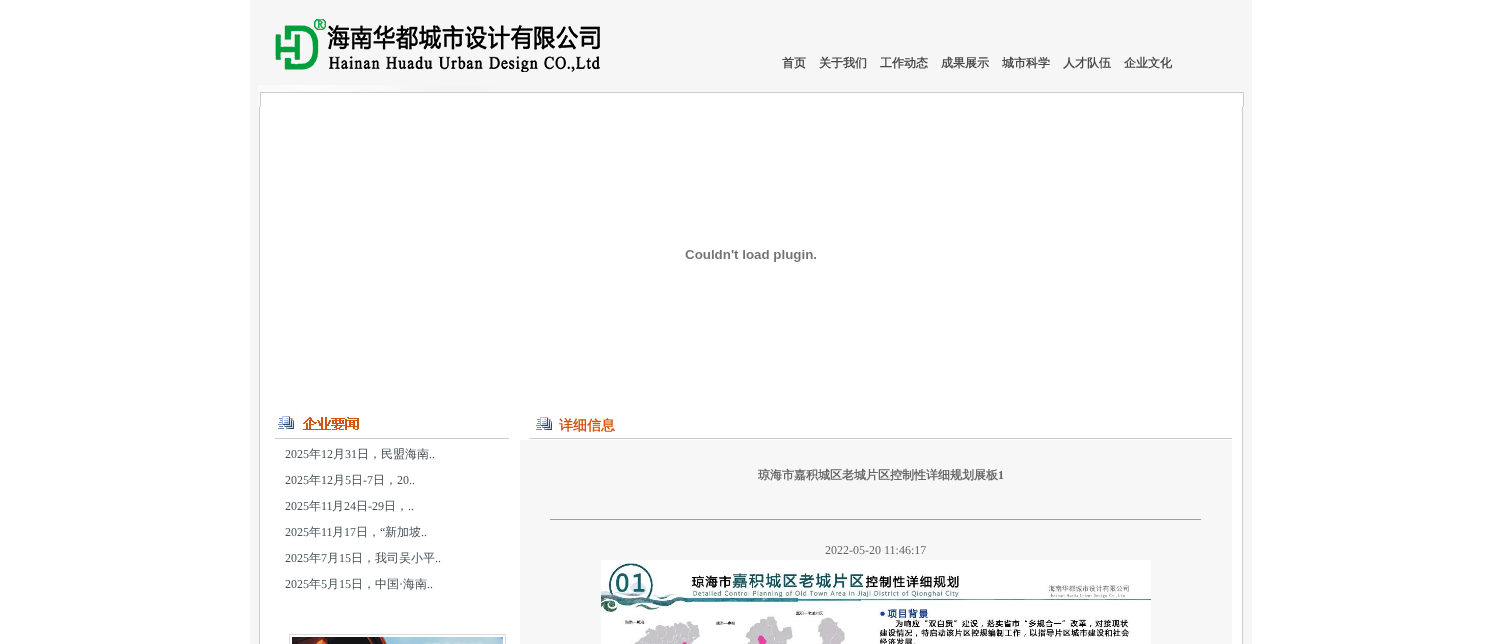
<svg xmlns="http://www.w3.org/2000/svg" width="1502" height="644">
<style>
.a{font:bold 12px WenQuanYi Zen Hei;fill:#494949}
.b{font:bold 14px WenQuanYi Zen Hei;fill:#d45312}
.c{font:12px Liberation Serif;fill:#455055}
.d{font:500 12px WenQuanYi Zen Hei;fill:#455055}
.e{font:bold 12px WenQuanYi Zen Hei;fill:#666}
.f{font:bold 12px Liberation Serif;fill:#666}
.g{font:12px Liberation Serif;fill:#666}
</style>
<rect width="100%" height="100%" fill="#fff"/>
<image href="1.png" x="250" y="85" width="1002" height="559"/>
<path fill="#f6f6f6" d="M250 0h1002v85H250z"/>
<image href="2.png" x="275" y="19" width="325" height="53"/>
<image href="3.png" x="258" y="85" width="986" height="22"/>
<image href="4.png" x="685" y="250" width="131" height="12"/>
<path fill="#ccc" d="M361 438h871v1H361z"/>
<image href="5.png" x="266" y="411" width="95" height="28"/>
<image href="6.png" x="509" y="411" width="48" height="28"/>
<path fill="#f7f7f7" d="M520 440h712v204H520z"/>
<image href="7.png" x="289" y="634" width="217" height="10"/>
<path fill="#9f9f9f" d="M550 519h652v1H550z"/>
<path fill="#eee" d="M1201 519h1v1H1201z"/>
<image href="8.png" x="601" y="560" width="550" height="84"/>
<text class="a" x="782" y="67">首页</text>
<text class="a" x="819" y="67">关于我们</text>
<text class="a" x="880" y="67">工作动态</text>
<text class="a" x="941" y="67">成果展示</text>
<text class="a" x="1002" y="67">城市科学</text>
<text class="a" x="1063" y="67">人才队伍</text>
<text class="a" x="1124" y="67">企业文化</text>
<text class="b" x="559" y="430">详细信息</text>
<text class="c" x="285" y="458">2025</text>
<text class="d" x="309" y="458">年</text>
<text class="c" x="321" y="458">12</text>
<text class="d" x="333" y="458">月</text>
<text class="c" x="345" y="458">31</text>
<text class="d" x="357" y="458">日，民盟海南</text>
<text class="c" x="429" y="458">..</text>
<text class="c" x="285" y="484">2025</text>
<text class="d" x="309" y="484">年</text>
<text class="c" x="321" y="484">12</text>
<text class="d" x="333" y="484">月</text>
<text class="c" x="345" y="484">5</text>
<text class="d" x="351" y="484">日</text>
<text class="c" x="363" y="484">-7</text>
<text class="d" x="373" y="484">日，</text>
<text class="c" x="397" y="484">20..</text>
<text class="c" x="285" y="510">2025</text>
<text class="d" x="309" y="510">年</text>
<text class="c" x="321" y="510">11</text>
<text class="d" x="332" y="510">月</text>
<text class="c" x="344" y="510">24</text>
<text class="d" x="356" y="510">日</text>
<text class="c" x="368" y="510">-29</text>
<text class="d" x="384" y="510">日，</text>
<text class="c" x="408" y="510">..</text>
<text class="c" x="285" y="536">2025</text>
<text class="d" x="309" y="536">年</text>
<text class="c" x="321" y="536">11</text>
<text class="d" x="332" y="536">月</text>
<text class="c" x="344" y="536">17</text>
<text class="d" x="356" y="536">日，</text>
<text class="c" x="380" y="536">“</text>
<text class="d" x="385" y="536">新加坡</text>
<text class="c" x="421" y="536">..</text>
<text class="c" x="285" y="562">2025</text>
<text class="d" x="309" y="562">年</text>
<text class="c" x="321" y="562">7</text>
<text class="d" x="327" y="562">月</text>
<text class="c" x="339" y="562">15</text>
<text class="d" x="351" y="562">日，我司吴小平</text>
<text class="c" x="435" y="562">..</text>
<text class="c" x="285" y="588">2025</text>
<text class="d" x="309" y="588">年</text>
<text class="c" x="321" y="588">5</text>
<text class="d" x="327" y="588">月</text>
<text class="c" x="339" y="588">15</text>
<text class="d" x="351" y="588">日，中国</text>
<text class="c" x="399" y="588">·</text>
<text class="d" x="403" y="588">海南</text>
<text class="c" x="427" y="588">..</text>
<text class="e" x="758" y="479">琼海市嘉积城区老城片区控制性详细规划展板</text>
<text class="f" x="998" y="479">1</text>
<text class="g" x="825" y="554">2022-05-20 11:46:17</text>
</svg>
